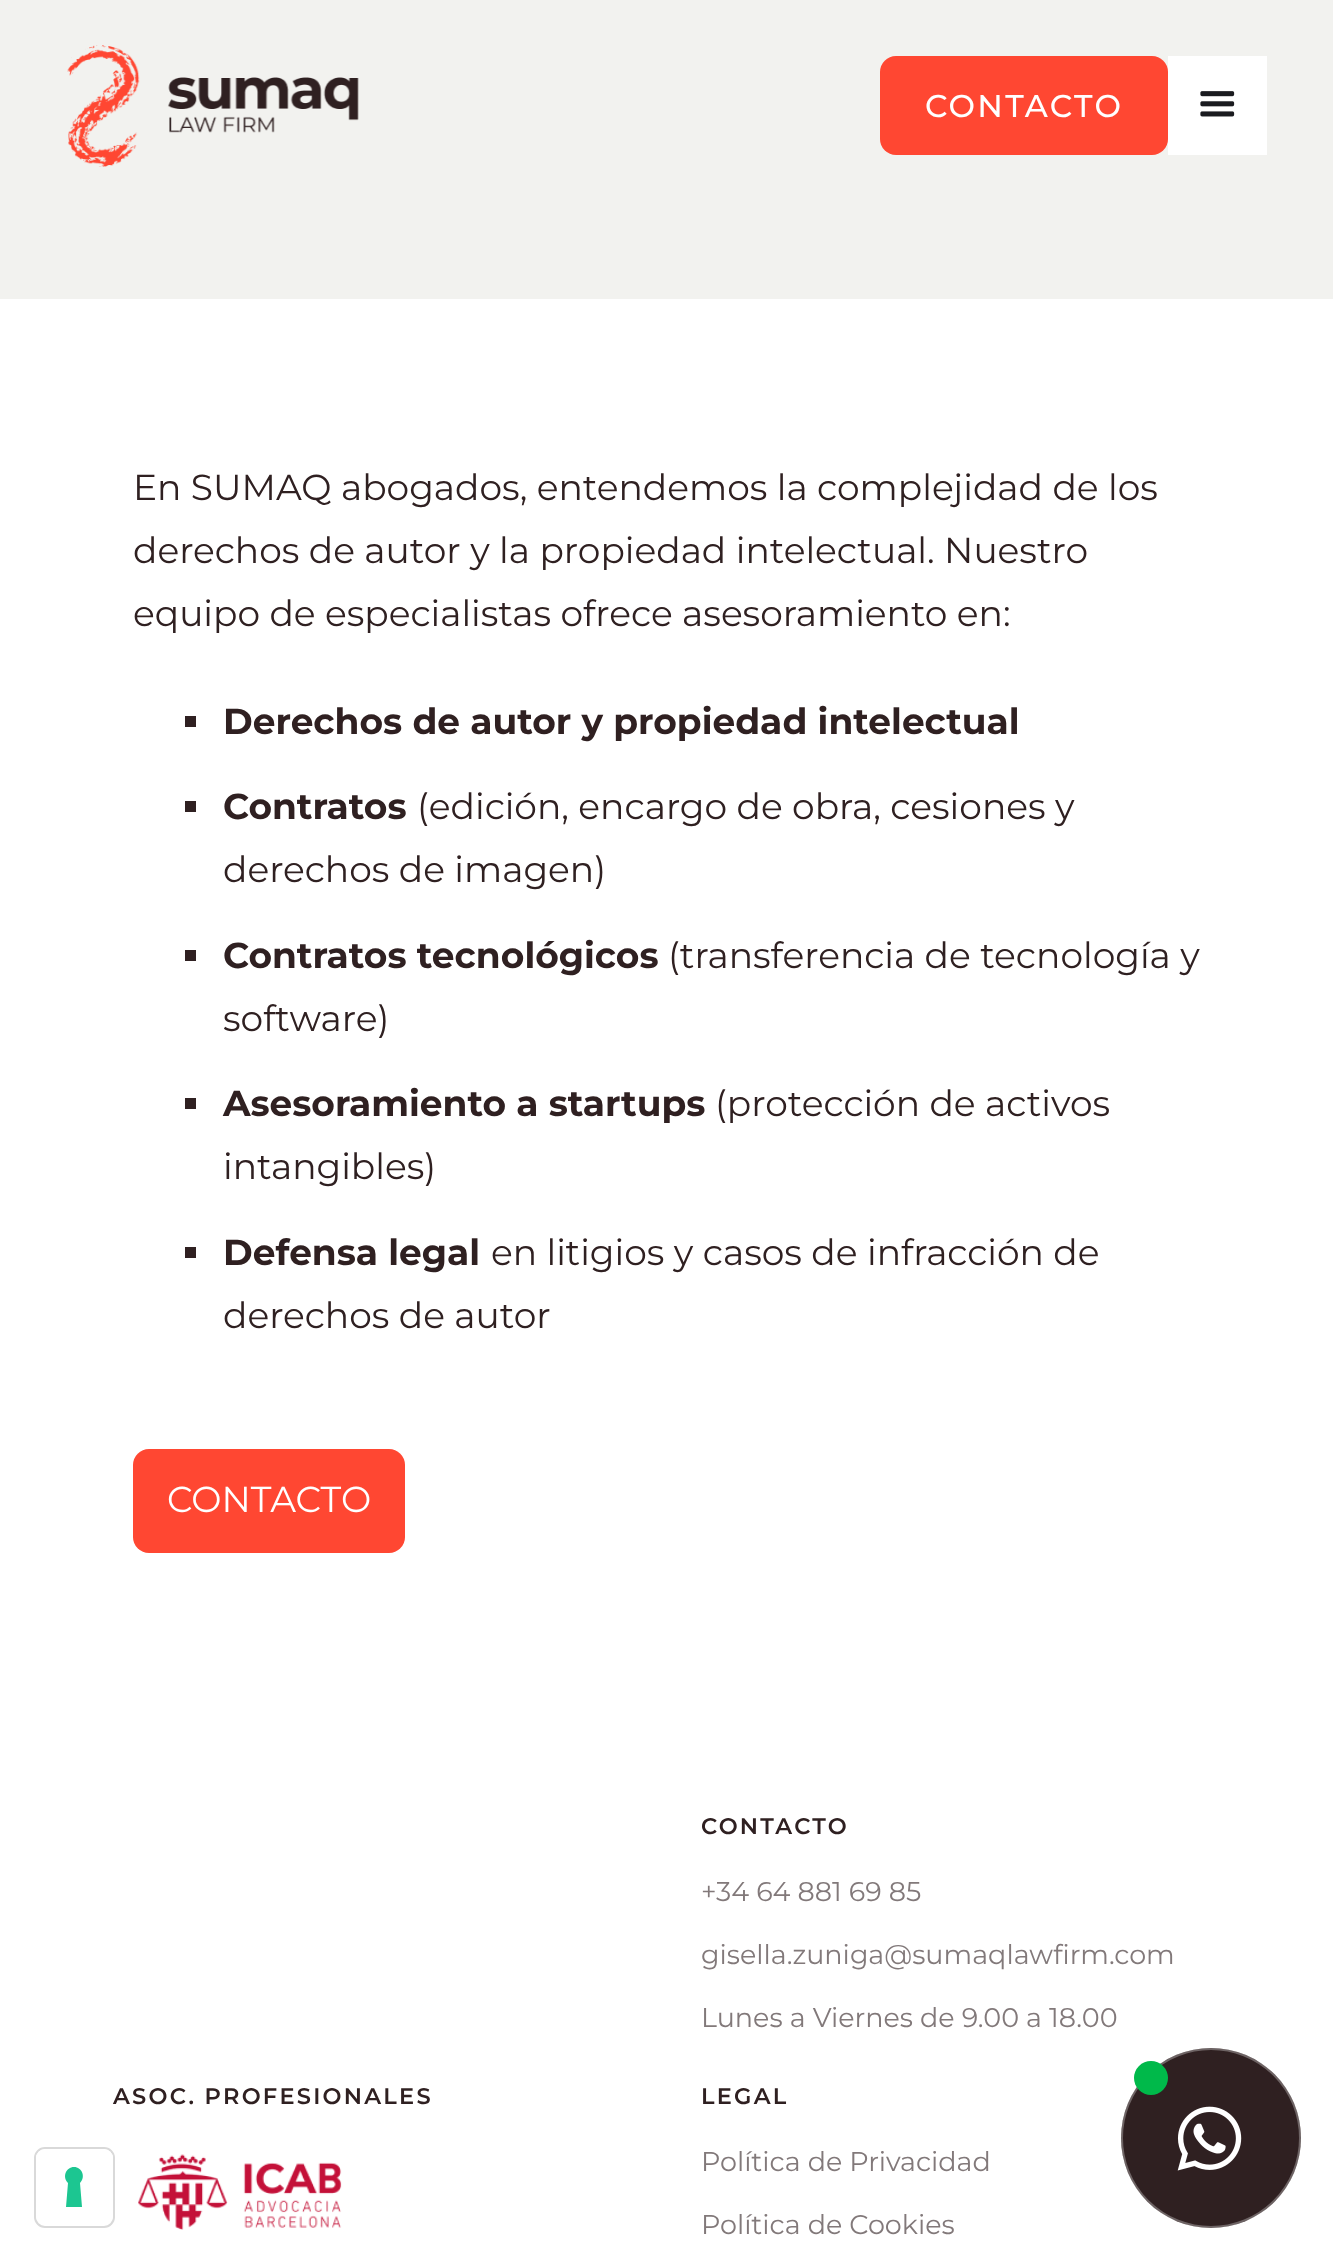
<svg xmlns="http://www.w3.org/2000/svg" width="1333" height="2261">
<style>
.a{font:500 31.5px Montserrat;letter-spacing:2.25px;fill:#fff}
.b{font:36px Montserrat;fill:#2f2021}
.c{font:bold 36px Montserrat;fill:#2f2021}
.d{font:36px Montserrat;fill:#fff}
.e{font:600 22.5px Montserrat;letter-spacing:2.25px;fill:#2f2021}
.f{font:27px Montserrat;fill:#82797a}
</style>
<rect width="100%" height="100%" fill="#f2f2ef"/>
<image href="1.png" x="67" y="45" width="292" height="122"/>
<rect fill="#ff4732" x="880" y="56" width="288" height="99" rx="16"/>
<path fill="#fff" d="M1168 56h99v99H1168z"/>
<image href="2.png" x="1200" y="91" width="35" height="26"/>
<path fill="#fff" d="M0 299h1333v1962H0z"/>
<path fill="#2f2021" d="M185 716h11v11H185z"/>
<path fill="#2f2021" d="M185 801h11v11H185z"/>
<path fill="#2f2021" d="M185 950h11v11H185z"/>
<path fill="#2f2021" d="M185 1098h11v11H185z"/>
<path fill="#2f2021" d="M185 1247h11v11H185z"/>
<rect fill="#ff4732" x="133" y="1449" width="272" height="104" rx="16"/>
<rect fill="none" stroke="#d9d9d9" stroke-width="2" x="35" y="2148" width="79" height="79" rx="10"/>
<rect fill="#fff" x="36" y="2149" width="77" height="76" rx="9"/>
<path fill="#1cc691" fill-rule="evenodd" d="M74 2167c8 0 12 10 6 16l2 24h-16l2-24c-6-6-2-16 6-16z"/>
<image href="3.png" x="138" y="2154" width="204" height="76"/>
<circle fill="#2f2021" cx="1211" cy="2138" r="90"/>
<circle fill="none" stroke="#ffffff4d" stroke-width="2" cx="1211" cy="2138" r="89"/>
<circle fill="#00b94a" cx="1151" cy="2078" r="17"/>
<image href="4.png" x="1177" y="2106" width="65" height="65"/>
<text class="a" x="925" y="117">CONTACTO</text>
<text class="b" x="133" y="500">En SUMAQ abogados, entendemos la complejidad de los</text>
<text class="b" x="133" y="563">derechos de autor y la propiedad intelectual. Nuestro</text>
<text class="b" x="133" y="626">equipo de especialistas ofrece asesoramiento en:</text>
<text class="c" x="223" y="734">Derechos de autor y propiedad intelectual</text>
<text class="c" x="223" y="819">Contratos</text>
<text class="b" x="417" y="819">(edición, encargo de obra, cesiones y</text>
<text class="b" x="223" y="882">derechos de imagen)</text>
<text class="c" x="223" y="968">Contratos tecnológicos</text>
<text class="b" x="668" y="968">(transferencia de tecnología y</text>
<text class="b" x="223" y="1031">software)</text>
<text class="c" x="223" y="1116">Asesoramiento a startups</text>
<text class="b" x="715" y="1116">(protección de activos</text>
<text class="b" x="223" y="1179">intangibles)</text>
<text class="c" x="223" y="1265">Defensa legal</text>
<text class="b" x="491" y="1265">en litigios y casos de infracción de</text>
<text class="b" x="223" y="1328">derechos de autor</text>
<text class="d" x="167" y="1512">CONTACTO</text>
<text class="e" x="701" y="1834">CONTACTO</text>
<text class="f" x="701" y="1901">+34 64 881 69 85</text>
<text class="f" x="701" y="1964">gisella.zuniga@sumaqlawfirm.com</text>
<text class="f" x="701" y="2027">Lunes a Viernes de 9.00 a 18.00</text>
<text class="e" x="113" y="2104">ASOC. PROFESIONALES</text>
<text class="e" x="701" y="2104">LEGAL</text>
<text class="f" x="701" y="2171">Política de Privacidad</text>
<text class="f" x="701" y="2234">Política de Cookies</text>
</svg>
